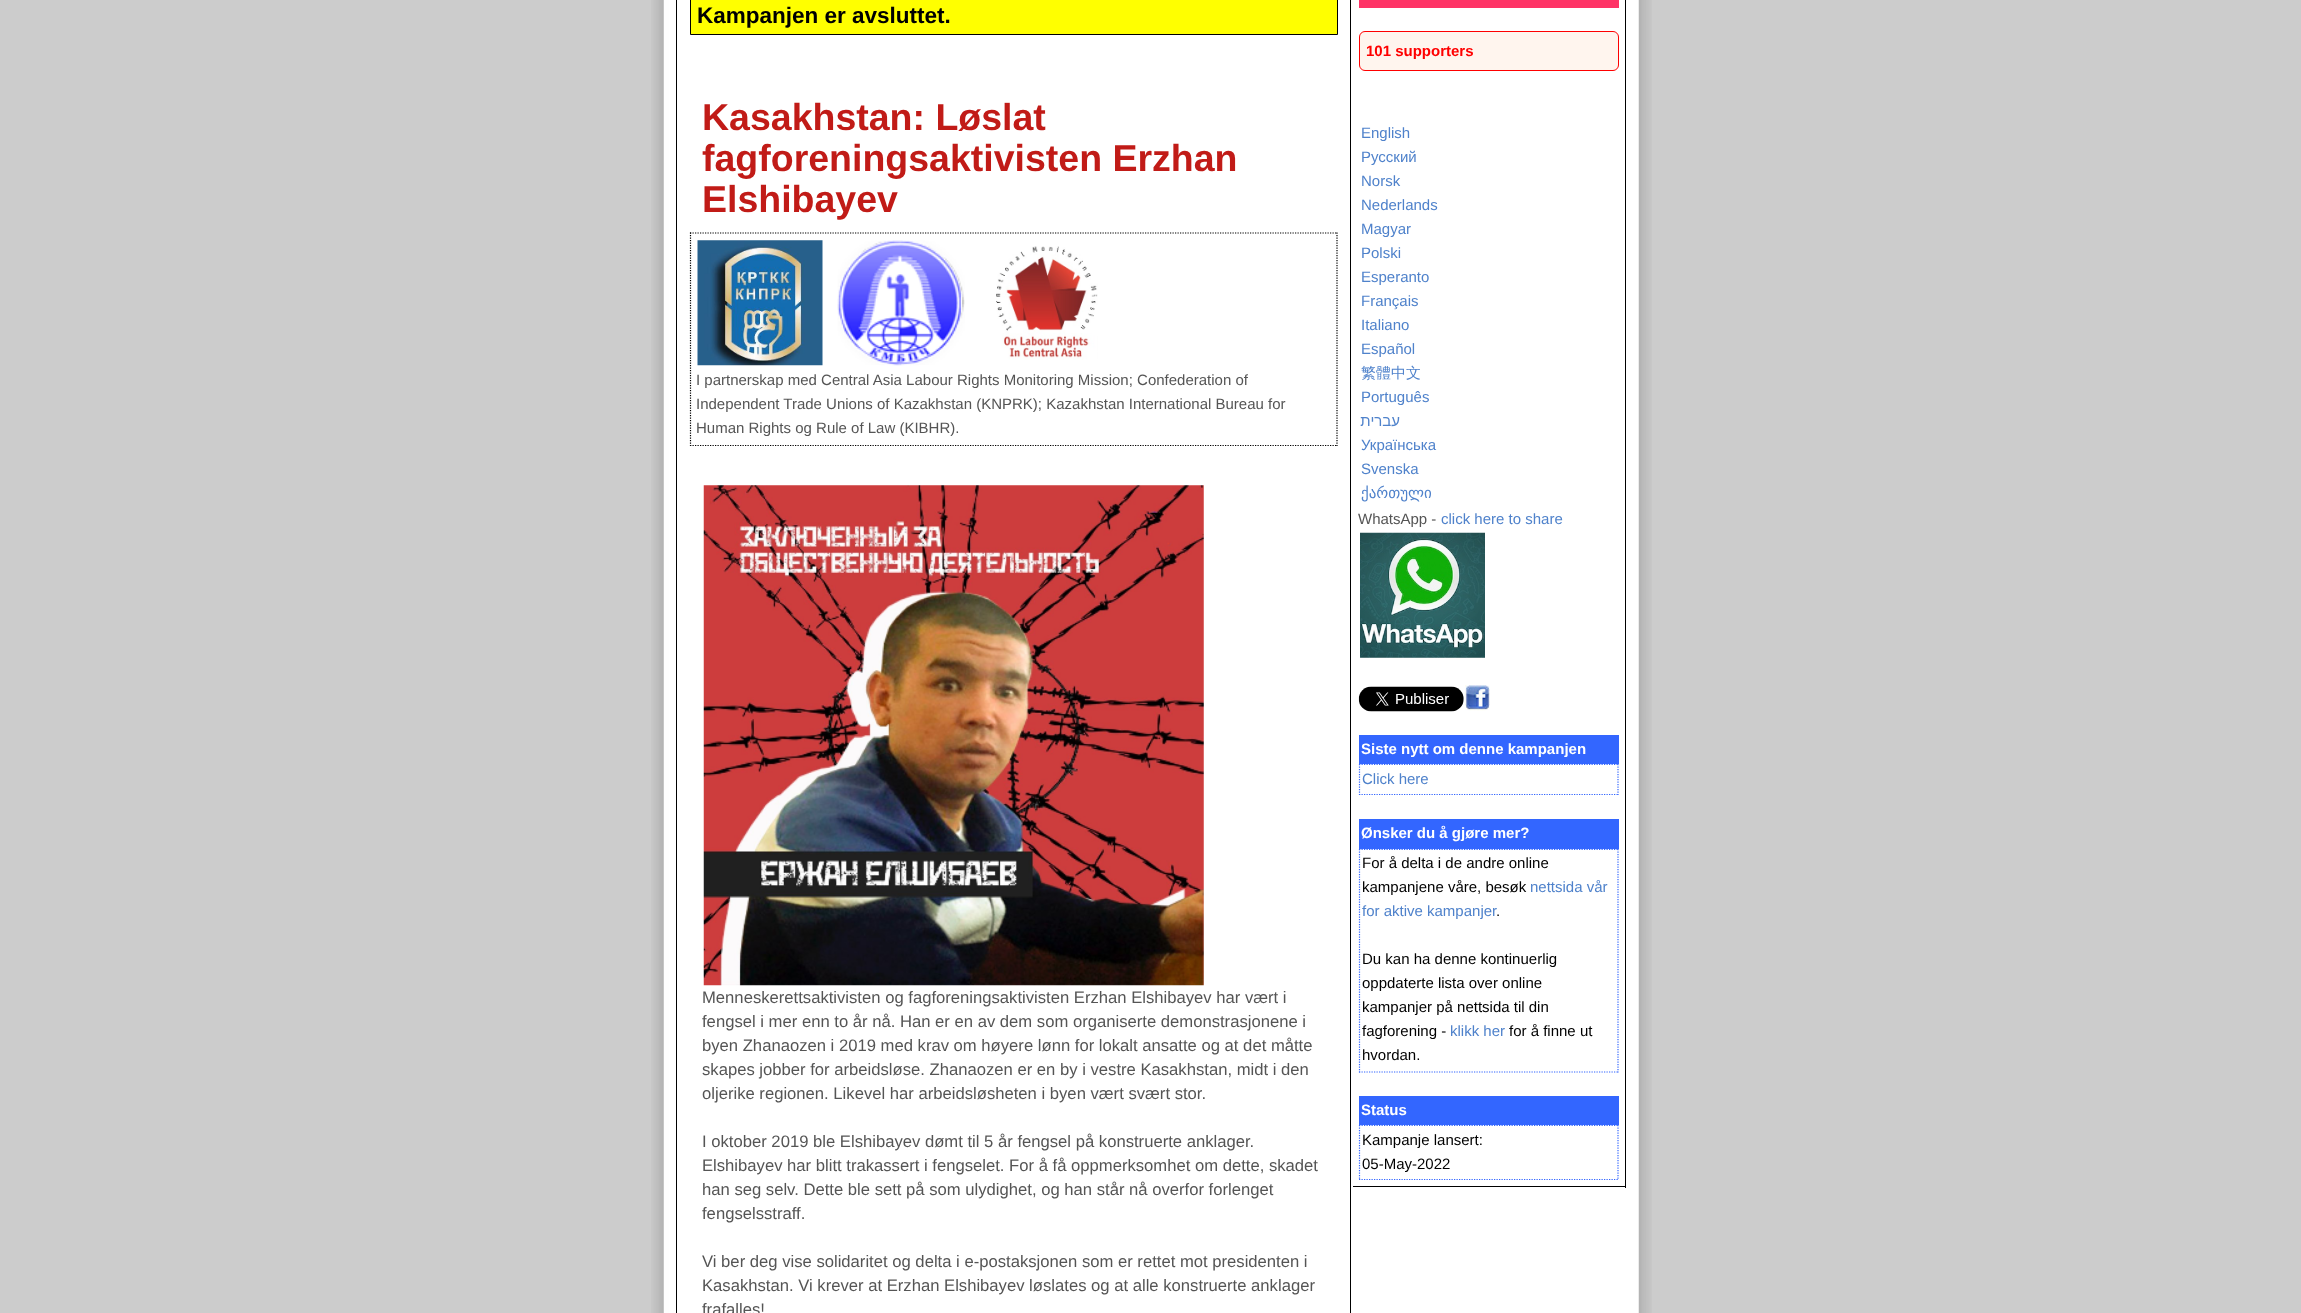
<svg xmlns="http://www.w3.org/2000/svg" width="2301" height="1313">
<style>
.a{font:bold 22.5px Liberation Sans;fill:#000}
.b{font:bold 37.5px Liberation Sans;fill:#c11b17}
.c{font:15px Liberation Sans;fill:#555}
.d{font:16.65px Liberation Sans;fill:#555}
.e{font:bold 15px Liberation Sans;fill:#f00}
.f{font:15px Liberation Sans;fill:#4f82cb}
.g{font:500 15px WenQuanYi Zen Hei;fill:#4f82cb}
.h{font:15px Liberation Sans;direction:rtl;fill:#4f82cb}
.i{font:15px DejaVu Sans;fill:#4f82cb}
.j{font:bold 15px Liberation Sans;fill:#fff}
.k{font:15px Liberation Sans;fill:#000}
</style>
<rect width="100%" height="100%" fill="#ccc"/>
<image href="1.png" x="651" y="0" width="1001" height="1313"/>
<path fill="none" stroke="#000" d="M676.5 -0.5h674v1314H676.5z"/>
<path fill="#ff0" stroke="#000" d="M690.5 -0.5h647v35H690.5z"/>
<path fill="none" stroke="#000" stroke-width="1.2" stroke-dasharray="1.25 1.25" d="M690 233h647.5"/>
<path fill="none" stroke="#000" stroke-width="1.2" stroke-dasharray="1.25 1.25" d="M1337 232.5v213.5"/>
<path fill="none" stroke="#000" stroke-width="1.2" stroke-dasharray="1.25 1.25" d="M690 445.5h647.5"/>
<path fill="none" stroke="#000" stroke-width="1.2" stroke-dasharray="1.25 1.25" d="M690.5 232.5v213.5"/>
<image href="2.png" x="697" y="240" width="126" height="126"/>
<image href="3.png" x="837" y="240" width="128" height="126"/>
<image href="4.png" x="996" y="246" width="102" height="114"/>
<image href="5.png" x="703" y="485" width="501" height="501"/>
<path fill="#000" d="M1625 0h1v1188H1625z"/>
<path fill="#000" d="M1353 1186h273v1H1353z"/>
<path fill="#f36" d="M1359 0h260v8H1359z"/>
<rect fill="#fff5ee" stroke="#f00" x="1359.5" y="31.5" width="259" height="39" rx="5.5"/>
<image href="6.png" x="1360" y="532" width="125" height="126"/>
<image href="7.png" x="1358" y="686" width="106" height="26"/>
<image href="8.png" x="1465" y="685" width="25" height="26"/>
<path fill="#36f" d="M1359 735h260v29H1359z"/>
<path fill="none" stroke="#36f" stroke-width="1.2" stroke-dasharray="1.25 1.25" d="M1359 764.5h260"/>
<path fill="none" stroke="#36f" stroke-width="1.2" stroke-dasharray="1.25 1.25" d="M1618 764v31"/>
<path fill="none" stroke="#36f" stroke-width="1.2" stroke-dasharray="1.25 1.25" d="M1359 794.5h260"/>
<path fill="none" stroke="#36f" stroke-width="1.2" stroke-dasharray="1.25 1.25" d="M1359.5 764v31"/>
<path fill="#36f" d="M1359 819h260v30H1359z"/>
<path fill="none" stroke="#36f" stroke-width="1.2" stroke-dasharray="1.25 1.25" d="M1359 849.5h260"/>
<path fill="none" stroke="#36f" stroke-width="1.2" stroke-dasharray="1.25 1.25" d="M1618 849v223.5"/>
<path fill="none" stroke="#36f" stroke-width="1.2" stroke-dasharray="1.25 1.25" d="M1359 1072h260"/>
<path fill="none" stroke="#36f" stroke-width="1.2" stroke-dasharray="1.25 1.25" d="M1359.5 849v223.5"/>
<path fill="#36f" d="M1359 1096h260v29H1359z"/>
<path fill="none" stroke="#36f" stroke-width="1.2" stroke-dasharray="1.25 1.25" d="M1359 1125.5h260"/>
<path fill="none" stroke="#36f" stroke-width="1.2" stroke-dasharray="1.25 1.25" d="M1618 1125v55"/>
<path fill="none" stroke="#36f" stroke-width="1.2" stroke-dasharray="1.25 1.25" d="M1359 1179.5h260"/>
<path fill="none" stroke="#36f" stroke-width="1.2" stroke-dasharray="1.25 1.25" d="M1359.5 1125v55"/>
<text class="a" x="697" y="23">Kampanjen er avsluttet.</text>
<text class="b" x="702" y="130">Kasakhstan: Løslat</text>
<text class="b" x="702" y="171">fagforeningsaktivisten Erzhan</text>
<text class="b" x="702" y="212">Elshibayev</text>
<text class="c" x="696" y="385">I partnerskap med Central Asia Labour Rights Monitoring Mission; Confederation of</text>
<text class="c" x="696" y="409">Independent Trade Unions of Kazakhstan (KNPRK); Kazakhstan International Bureau for</text>
<text class="c" x="696" y="433">Human Rights og Rule of Law (KIBHR).</text>
<text class="d" x="702" y="1003">Menneskerettsaktivisten og fagforeningsaktivisten Erzhan Elshibayev har vært i</text>
<text class="d" x="702" y="1027">fengsel i mer enn to år nå. Han er en av dem som organiserte demonstrasjonene i</text>
<text class="d" x="702" y="1051">byen Zhanaozen i 2019 med krav om høyere lønn for lokalt ansatte og at det måtte</text>
<text class="d" x="702" y="1075">skapes jobber for arbeidsløse. Zhanaozen er en by i vestre Kasakhstan, midt i den</text>
<text class="d" x="702" y="1099">oljerike regionen. Likevel har arbeidsløsheten i byen vært svært stor.</text>
<text class="d" x="702" y="1147">I oktober 2019 ble Elshibayev dømt til 5 år fengsel på konstruerte anklager.</text>
<text class="d" x="702" y="1171">Elshibayev har blitt trakassert i fengselet. For å få oppmerksomhet om dette, skadet</text>
<text class="d" x="702" y="1195">han seg selv. Dette ble sett på som ulydighet, og han står nå overfor forlenget</text>
<text class="d" x="702" y="1219">fengselsstraff.</text>
<text class="d" x="702" y="1267">Vi ber deg vise solidaritet og delta i e-postaksjonen som er rettet mot presidenten i</text>
<text class="d" x="702" y="1291">Kasakhstan. Vi krever at Erzhan Elshibayev løslates og at alle konstruerte anklager</text>
<text class="d" x="702" y="1315">frafalles!</text>
<text class="e" x="1366" y="56">101 supporters</text>
<text class="f" x="1361" y="138">English</text>
<text class="f" x="1361" y="162">Русский</text>
<text class="f" x="1361" y="186">Norsk</text>
<text class="f" x="1361" y="210">Nederlands</text>
<text class="f" x="1361" y="234">Magyar</text>
<text class="f" x="1361" y="258">Polski</text>
<text class="f" x="1361" y="282">Esperanto</text>
<text class="f" x="1361" y="306">Français</text>
<text class="f" x="1361" y="330">Italiano</text>
<text class="f" x="1361" y="354">Español</text>
<text class="g" x="1361" y="378">繁體中文</text>
<text class="f" x="1361" y="402">Português</text>
<text class="h" x="1400" y="426">עברית</text>
<text class="f" x="1361" y="450">Українська</text>
<text class="f" x="1361" y="474">Svenska</text>
<text class="i" x="1361" y="498">ქართული</text>
<text class="c" x="1358" y="524">WhatsApp -</text>
<text class="f" x="1441" y="524">click here to share</text>
<text class="j" x="1361" y="754">Siste nytt om denne kampanjen</text>
<text class="f" x="1362" y="784">Click here</text>
<text class="j" x="1361" y="838">Ønsker du å gjøre mer?</text>
<text class="k" x="1362" y="868">For å delta i de andre online</text>
<text class="k" x="1362" y="892">kampanjene våre, besøk</text>
<text class="f" x="1530" y="892">nettsida vår</text>
<text class="f" x="1362" y="916">for aktive kampanjer</text>
<text class="k" x="1496" y="916">.</text>
<text class="k" x="1362" y="964">Du kan ha denne kontinuerlig</text>
<text class="k" x="1362" y="988">oppdaterte lista over online</text>
<text class="k" x="1362" y="1012">kampanjer på nettsida til din</text>
<text class="k" x="1362" y="1036">fagforening -</text>
<text class="f" x="1450" y="1036">klikk her</text>
<text class="k" x="1509" y="1036">for å finne ut</text>
<text class="k" x="1362" y="1060">hvordan.</text>
<text class="j" x="1361" y="1115">Status</text>
<text class="k" x="1362" y="1145">Kampanje lansert:</text>
<text class="k" x="1362" y="1169">05-May-2022</text>
</svg>
